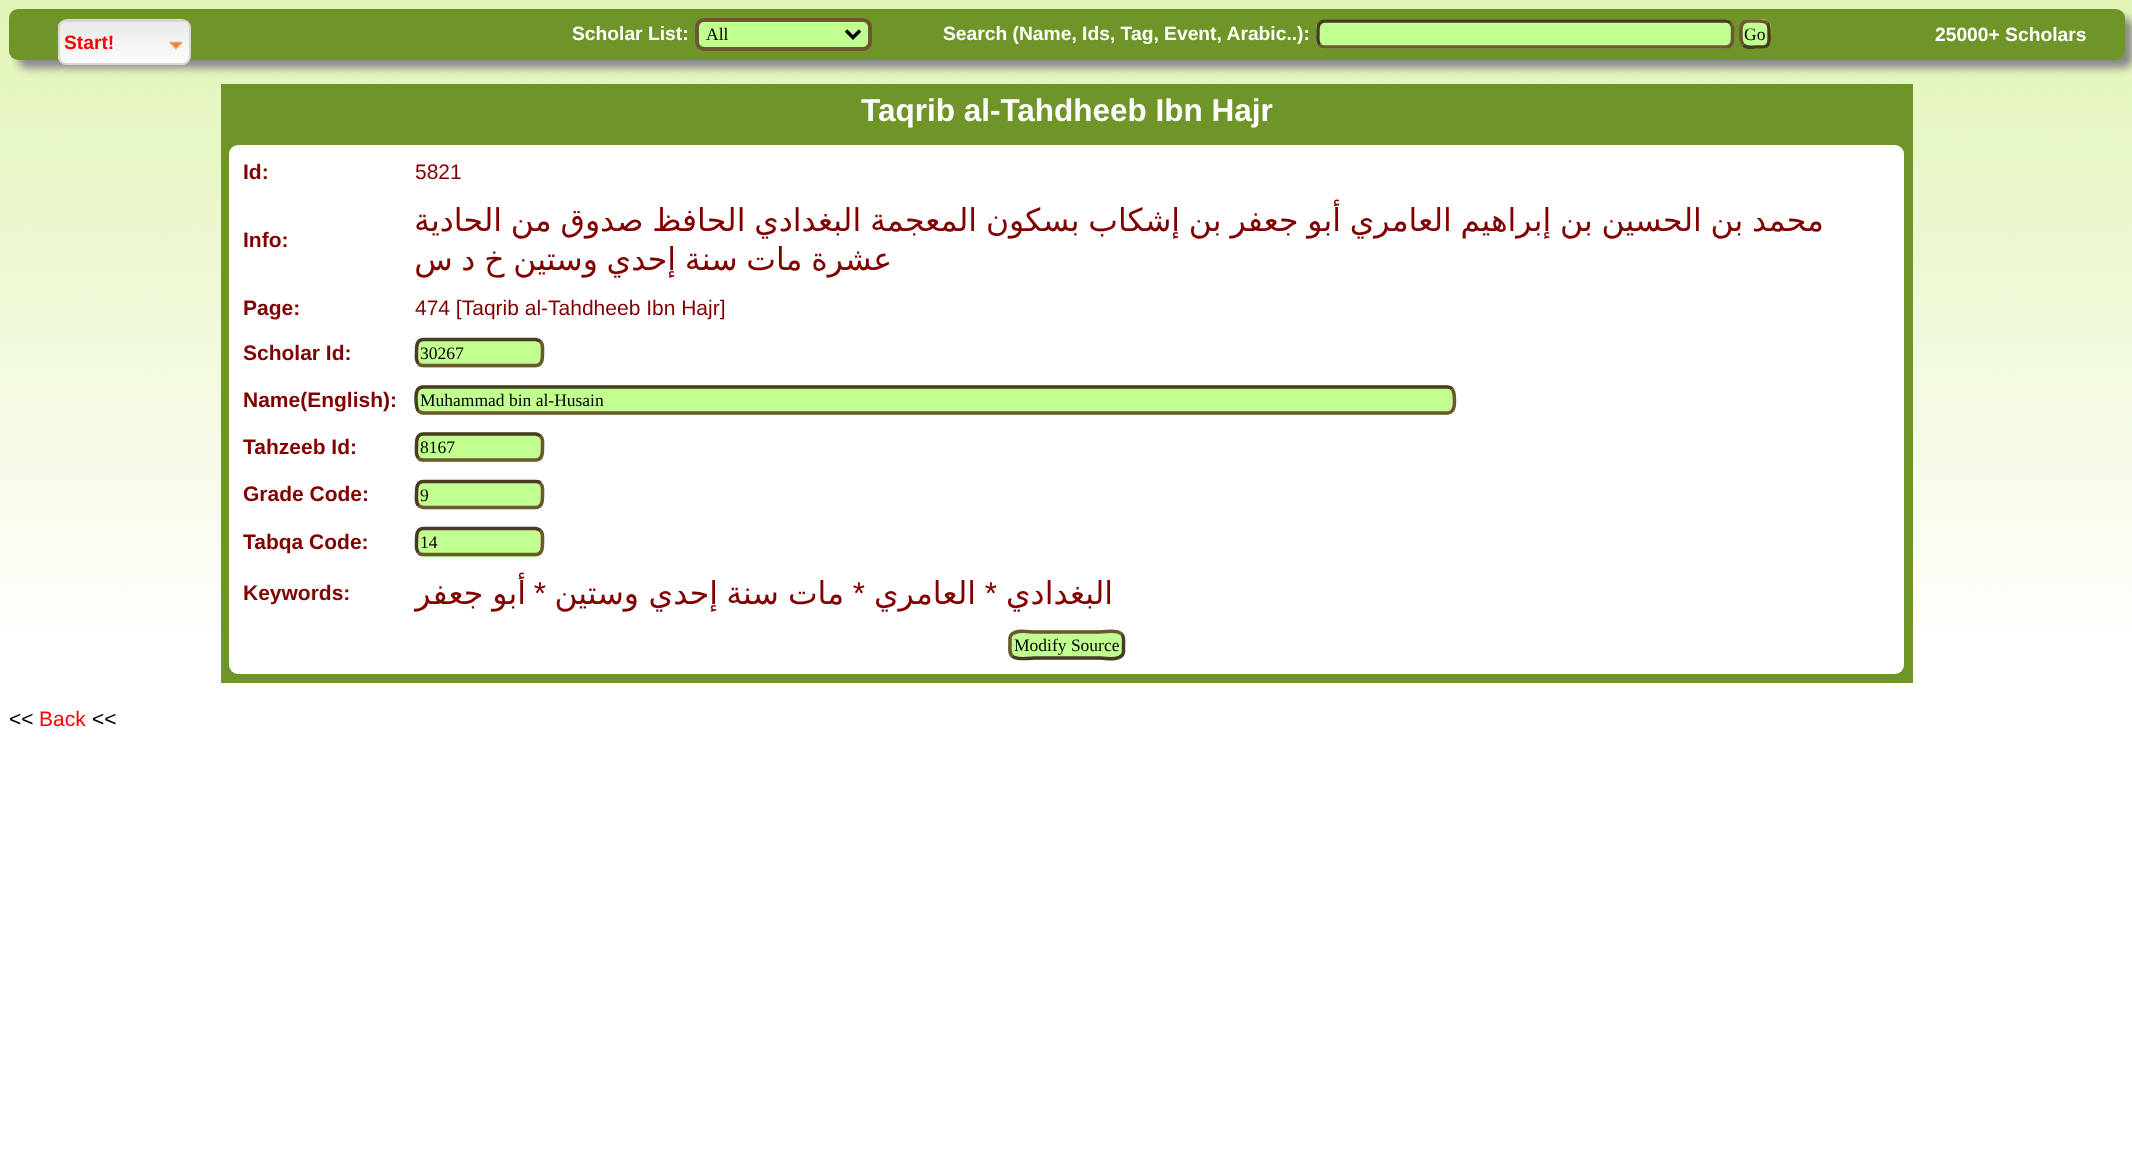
<svg xmlns="http://www.w3.org/2000/svg" width="2132" height="1149">
<style>
.a{font:bold 19.25px Liberation Sans;fill:#f00}
.b{font:bold 19.25px Liberation Sans;fill:#fff}
.c{font:17.5px Liberation Serif;fill:#000}
.d{font:bold 31.5px Liberation Sans;fill:#fff}
.e{font:bold 21px Liberation Sans;fill:#800000}
.f{font:21px Liberation Sans;fill:#800000}
.g{font:31.5px DejaVu Sans;direction:rtl;fill:#800000}
.h{font:31.5px Liberation Sans;direction:rtl;fill:#800000}
.i{font:21px Liberation Sans;fill:#000}
.j{font:21px Liberation Sans;fill:#f00}
</style>
<rect width="100%" height="100%" fill="#fff"/>
<image href="1.png" x="0" y="0" width="2132" height="630"/>
<rect fill="#888" filter="blur(4.5px)" x="18" y="18" width="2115" height="50" rx="9"/>
<rect fill="#6f9427" x="9" y="9" width="2116" height="51" rx="9"/>
<image href="2.png" x="57" y="20" width="134" height="45"/>
<rect fill="none" stroke="#d6d6d6" stroke-width="2" x="59" y="20" width="131" height="44" rx="8"/>
<image href="3.png" x="169" y="41" width="13" height="9"/>
<rect fill="#c0ff90" stroke="#6d5731" stroke-width="4" x="697" y="20" width="173" height="29" rx="7"/>
<path fill="none" stroke="#000" stroke-width="3.5" d="M846 30.5l7 7l7-7"/>
<rect fill="#c0ff90" x="1316" y="19" width="418" height="30" rx="9"/>
<path fill="none" stroke="#6d5731" stroke-width="3.5" d="M1730.5 23c3 3 2 7.5 2 11c0 5 1 12-5.5 13h-402c-2 0-4-.5-5-2"/>
<path fill="none" stroke="#493a21" stroke-width="3.5" d="M1320 45c-3-2.5-2-7-2-11c0-5-1-11.5 5.5-13h402c2 0 3.5 .5 5 2"/>
<rect fill="#c0ff90" x="1740" y="19" width="31" height="30" rx="9"/>
<path fill="none" stroke="#493a21" stroke-width="3.5" d="M1767 23c2.5 2.5 2 6 2 9c0 5.5 2 14.5-6 15h-8c-3.5 0-8.5 1.5-11.5-2"/>
<path fill="none" stroke="#6d5731" stroke-width="3.5" d="M1743.5 45c-2.5-2.5-2.5-5.5-2.5-9c0-5.5-1.5-14 6.5-15h7.5c4 0 9-1 12 2"/>
<path fill="#6f9427" d="M221 84h1692v599H221z"/>
<rect fill="#fff" x="229" y="145" width="1675" height="529" rx="9"/>
<rect fill="#c0ff90" x="415" y="338" width="129" height="30" rx="9"/>
<path fill="none" stroke="#6d5731" stroke-width="3.5" d="M540.5 341.5c3 3 2 7.5 2 11c0 5 .5 12.5-6.5 13h-113l-3-.5l-1.5-1.5"/>
<path fill="none" stroke="#493a21" stroke-width="3.5" d="M418.5 363.5c-3-2.5-2-7-2-11c0-5-.5-12.5 6.5-13h113l3 1l1.5 1"/>
<rect fill="#c0ff90" x="415" y="385" width="1041" height="30" rx="9"/>
<path fill="none" stroke="#6d5731" stroke-width="3.5" d="M1452 389c3 3 3 16.5 1.5 19.5c-1 3-3.5 4.5-6.5 4.5h-1023.5c-2 0-3.5-.5-5-2"/>
<path fill="none" stroke="#493a21" stroke-width="3.5" d="M418.5 411c-3-3-3-17-1.5-20c1-2.5 3.5-4 6.5-4h1023.5c2 0 4 .5 5 2"/>
<rect fill="#c0ff90" x="415" y="432" width="129" height="30" rx="9"/>
<path fill="none" stroke="#6d5731" stroke-width="3.5" d="M540.5 436c3 3 2 7.5 2 11c0 5 .5 12.5-6.5 13h-113l-3-.5l-1.5-1.5"/>
<path fill="none" stroke="#493a21" stroke-width="3.5" d="M418.5 458c-3-2.5-2-7-2-11c0-5-.5-12.5 6.5-13h113l3 1l1.5 1"/>
<rect fill="#c0ff90" x="415" y="480" width="129" height="29" rx="9"/>
<path fill="none" stroke="#6d5731" stroke-width="3.5" d="M540.5 483.5c3 2.5 2 7 2 11c0 5 .5 12.5-6.5 13h-113l-3-1l-1.5-1"/>
<path fill="none" stroke="#493a21" stroke-width="3.5" d="M418.5 505.5c-3-3-2-7.5-2-11c0-5-.5-12.5 6.5-13h113l3 .5l1.5 1.5"/>
<rect fill="#c0ff90" x="415" y="527" width="129" height="30" rx="9"/>
<path fill="none" stroke="#6d5731" stroke-width="3.5" d="M540.5 530.5c3 3 2 7.5 2 11c0 5 .5 12.5-6.5 13h-113l-3-.5l-1.5-1.5"/>
<path fill="none" stroke="#493a21" stroke-width="3.5" d="M418.5 552.5c-3-2.5-2-7-2-11c0-5-.5-12.5 6.5-13h113l3 1l1.5 1"/>
<rect fill="#c0ff90" x="1008" y="630" width="117" height="30" rx="9"/>
<path fill="none" stroke="#493a21" stroke-width="3.5" d="M1121.5 634c3 2.5 2 7 2 11v7.5c-2 9.5-19.5 5.5-23.5 5.5h-66.5c-2 0-17 2.5-21.5-2"/>
<path fill="none" stroke="#6d5731" stroke-width="3.5" d="M1012 656c-3-3-2-7.5-2-11v-7.5c2-9.5 19-5.5 23.5-5.5h66.5c1.5 0 17-3 21.5 2"/>
<text class="a" x="64" y="49">Start!</text>
<text class="b" x="572" y="40">Scholar List:</text>
<text class="c" x="706" y="40">All</text>
<text class="b" x="943" y="40">Search (Name, Ids, Tag, Event, Arabic..):</text>
<text class="c" x="1744" y="40">Go</text>
<text class="b" x="1935" y="41">25000+ Scholars</text>
<text class="d" x="861" y="121">Taqrib al-Tahdheeb Ibn Hajr</text>
<text class="e" x="243" y="179">Id:</text>
<text class="f" x="415" y="179">5821</text>
<text class="e" x="243" y="247">Info:</text>
<text class="g" x="1824" y="231" word-spacing="-1.25">محمد بن الحسين بن إبراهيم العامري أبو جعفر بن إشكاب بسكون المعجمة البغدادي الحافظ صدوق من الحادية</text>
<text class="g" x="892" y="270" word-spacing="-1.25">عشرة مات سنة إحدي وستين خ د س</text>
<text class="e" x="243" y="315">Page:</text>
<text class="f" x="415" y="315">474 [Taqrib al-Tahdheeb Ibn Hajr]</text>
<text class="e" x="243" y="360">Scholar Id:</text>
<text class="c" x="420" y="359">30267</text>
<text class="e" x="243" y="407">Name(English):</text>
<text class="c" x="420" y="406">Muhammad bin al-Husain</text>
<text class="e" x="243" y="454">Tahzeeb Id:</text>
<text class="c" x="420" y="453">8167</text>
<text class="e" x="243" y="501">Grade Code:</text>
<text class="c" x="420" y="501">9</text>
<text class="e" x="243" y="549">Tabqa Code:</text>
<text class="c" x="420" y="548">14</text>
<text class="e" x="243" y="600">Keywords:</text>
<text class="g" x="526" y="604" word-spacing="-1">أبو جعفر</text>
<text class="h" x="546" y="604">*</text>
<text class="g" x="639" y="604">وستين</text>
<text class="g" x="718" y="604">إحدي</text>
<text class="g" x="779" y="604">سنة</text>
<text class="g" x="844" y="604">مات</text>
<text class="h" x="865" y="604">*</text>
<text class="g" x="976" y="604">العامري</text>
<text class="h" x="997" y="604">*</text>
<text class="g" x="1113" y="604">البغدادي</text>
<text class="c" x="1014" y="651">Modify Source</text>
<text class="i" x="9" y="726">&lt;&lt;</text>
<text class="j" x="39" y="726">Back</text>
<text class="i" x="92" y="726">&lt;&lt;</text>
</svg>
